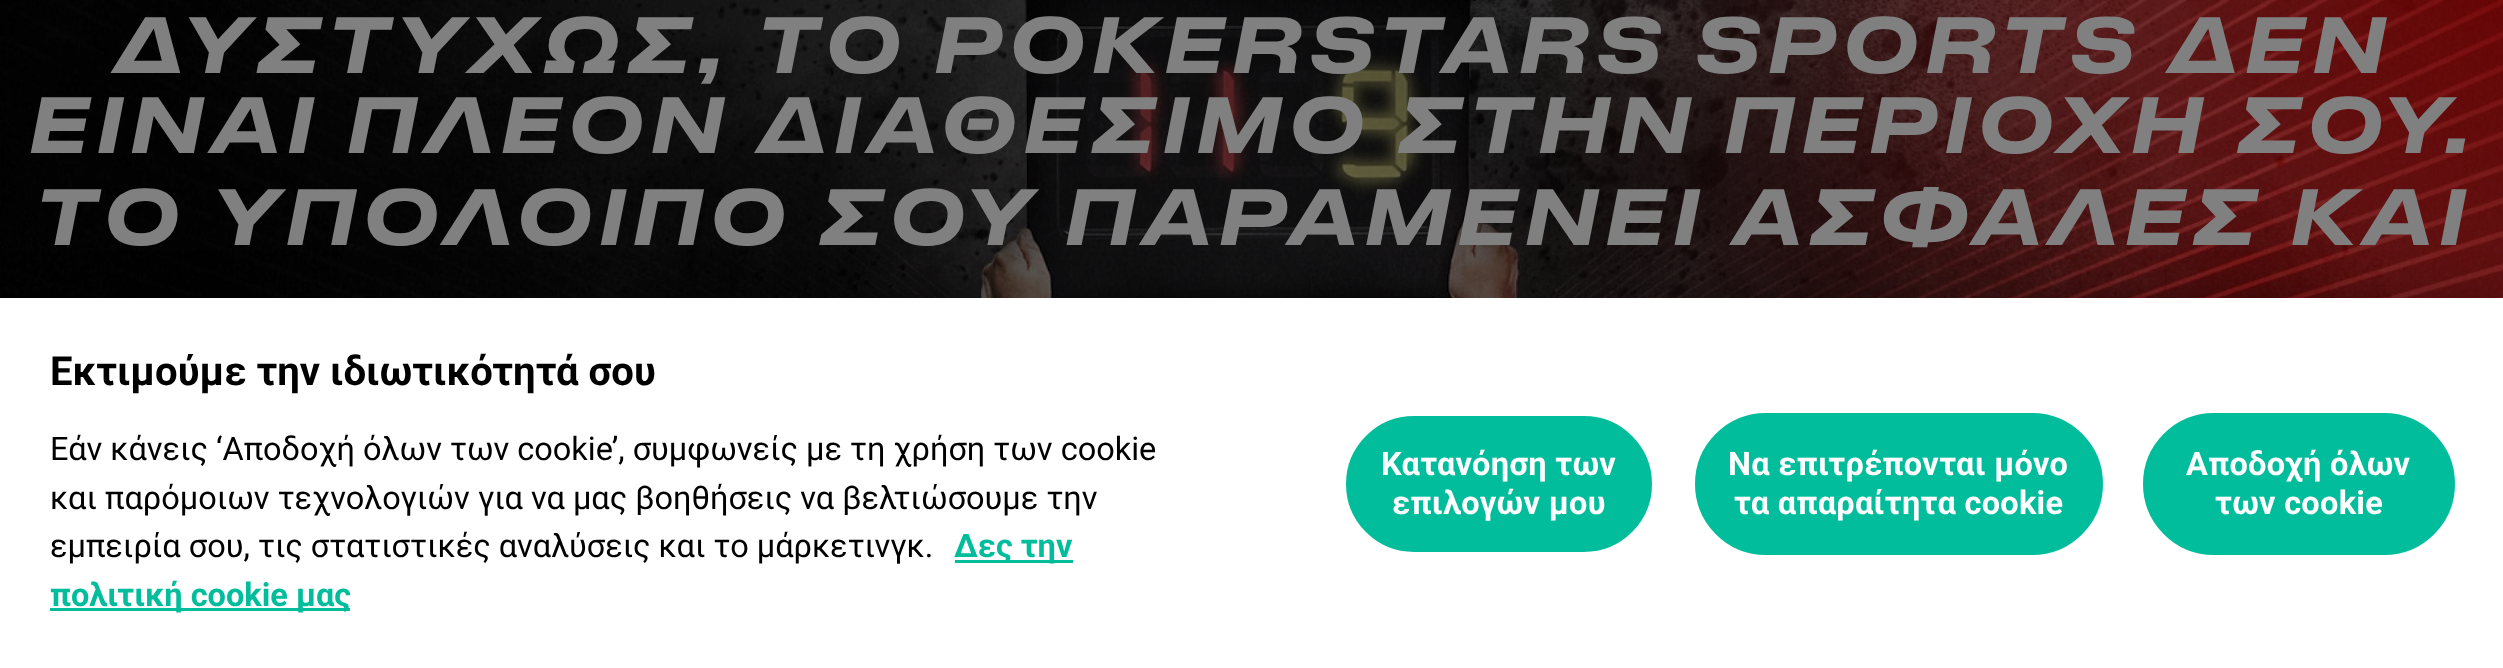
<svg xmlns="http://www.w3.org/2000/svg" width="2503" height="668">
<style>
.a{font:italic 500 75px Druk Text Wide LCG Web;letter-spacing:5px;fill:#808080}
.b{font:bold 40px Roboto;fill:#000}
.c{font:32.5px Roboto;fill:#000}
.d{font:bold 32.5px Roboto;fill:#02bd9c}
.e{font:bold 32.5px Roboto;letter-spacing:0.3px;fill:#fff}
</style>
<rect width="100%" height="100%" fill="#fff"/>
<image href="1.png" x="0" y="0" width="2503" height="298"/>
<path fill="#00000033" filter="blur(22.5px)" d="M0 298h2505v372H0z"/>
<path fill="#fff" d="M0 298h2503v370H0z"/>
<path fill="#02bd9c" d="M955 560h118v3H955z"/>
<path fill="#02bd9c" d="M50 608h300v3H50z"/>
<rect fill="#02bd9c" stroke="#fff" stroke-width="3" x="1344.5" y="414.5" width="309" height="139" rx="69.5"/>
<rect fill="#02bd9c" stroke="#02bd9c" stroke-width="3" x="1696.5" y="414.5" width="405" height="139" rx="69.5"/>
<rect fill="#02bd9c" stroke="#02bd9c" stroke-width="3" x="2144.5" y="414.5" width="309" height="139" rx="69.5"/>
<text class="a" x="113" y="73">ΔΥΣΤΥΧΩΣ, ΤΟ POKERSTARS SPORTS ΔΕΝ</text>
<text class="a" x="28" y="153">ΕΙΝΑΙ ΠΛΕΟΝ ΔΙΑΘΕΣΙΜΟ ΣΤΗΝ ΠΕΡΙΟΧΗ ΣΟΥ.</text>
<text class="a" x="34" y="245">ΤΟ ΥΠΟΛΟΙΠΟ ΣΟΥ ΠΑΡΑΜΕΝΕΙ ΑΣΦΑΛΕΣ ΚΑΙ</text>
<text class="b" x="50" y="385">Εκτιμούμε την ιδιωτικότητά σου</text>
<text class="c" x="50" y="460">Εάν κάνεις ‘Αποδοχή όλων των cookie’, συμφωνείς με τη χρήση των cookie</text>
<text class="c" x="50" y="509">και παρόμοιων τεχνολογιών για να μας βοηθήσεις να βελτιώσουμε την</text>
<text class="c" x="50" y="557">εμπειρία σου, τις στατιστικές αναλύσεις και το μάρκετινγκ.</text>
<text class="d" x="954" y="557">Δες την</text>
<text class="d" x="50" y="606">πολιτική cookie μας</text>
<text class="e" x="1381" y="475">Κατανόηση των</text>
<text class="e" x="1392" y="514">επιλογών μου</text>
<text class="e" x="1728" y="475">Να επιτρέπονται μόνο</text>
<text class="e" x="1734" y="514">τα απαραίτητα cookie</text>
<text class="e" x="2186" y="475">Αποδοχή όλων</text>
<text class="e" x="2215" y="514">των cookie</text>
</svg>
